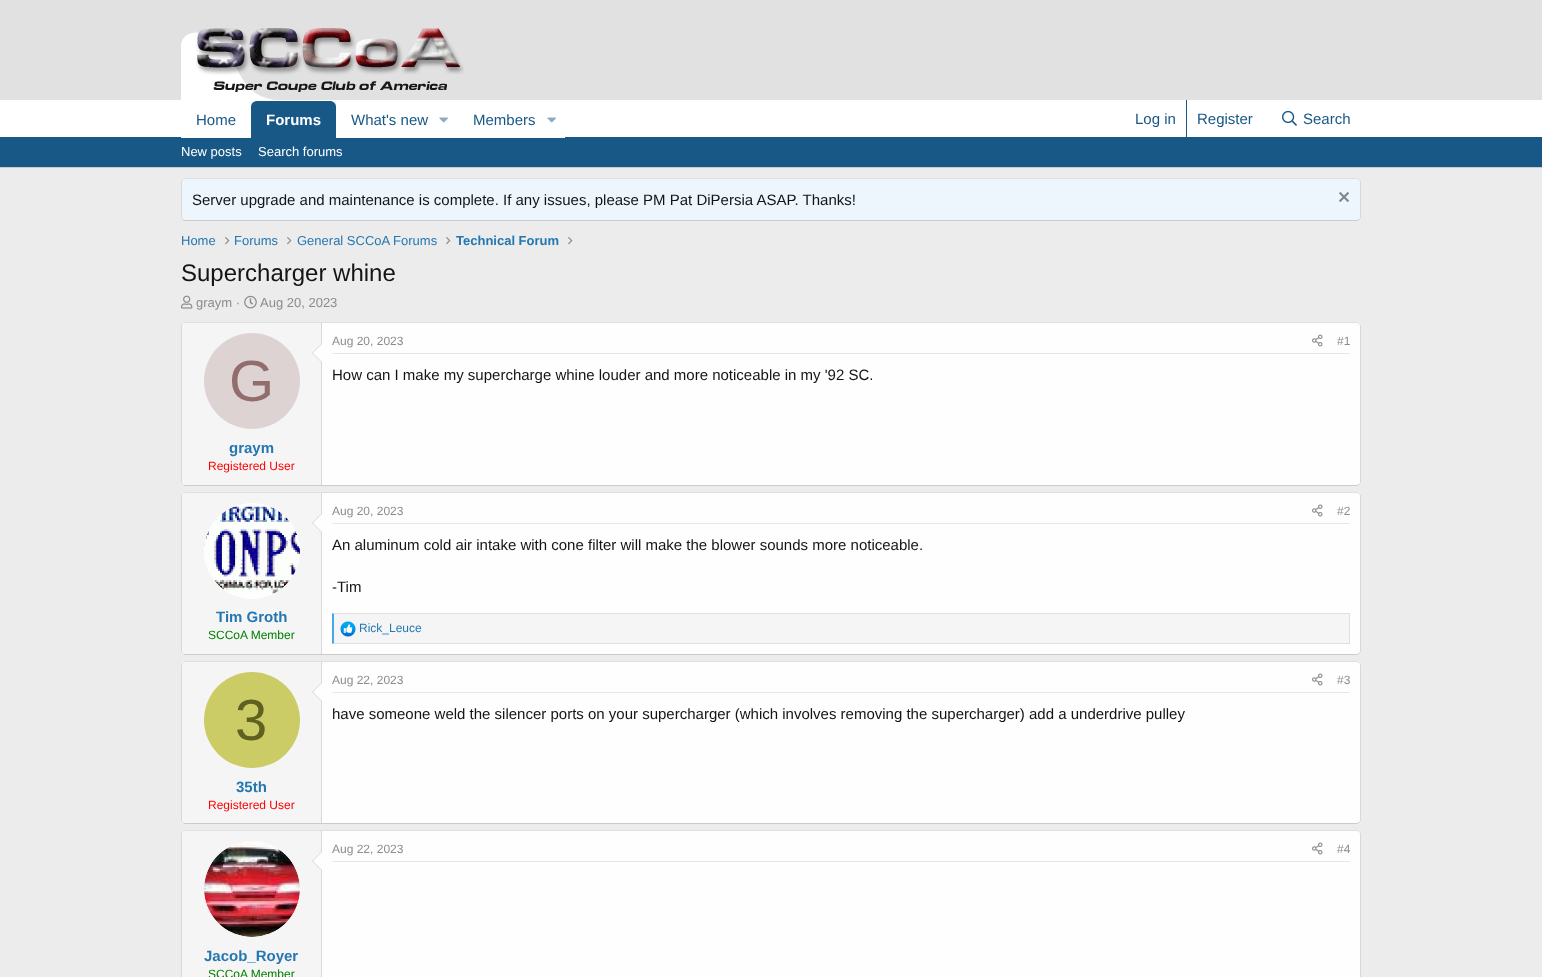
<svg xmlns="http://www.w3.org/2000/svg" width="1542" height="977">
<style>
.a{font:15px Liberation Sans;fill:#185886}
.b{font:bold 15px Liberation Sans;fill:#fff}
.c{font:13px Liberation Sans;fill:#fff}
.d{font:15px Liberation Sans;fill:#141414}
.e{font:13px Liberation Sans;fill:#2577b1}
.f{font:bold 13px Liberation Sans;fill:#2577b1}
.g{font:24px Liberation Sans;fill:#141414}
.h{font:13px Liberation Sans;fill:#8c8c8c}
.i{font:58px Liberation Sans;fill:#936c6c}
.j{font:bold 15px Liberation Sans;fill:#2577b1}
.k{font:12px Liberation Sans;fill:#f00}
.l{font:12px Liberation Sans;fill:#8c8c8c}
.m{font:12px Liberation Sans;fill:#008000}
.n{font:12px Liberation Sans;fill:#2577b1}
.o{font:58px Liberation Sans;fill:#606020}
</style>
<rect width="100%" height="100%" fill="#ececec"/>
<path fill="#e1e1e2" d="M0 0h1542v100H0z"/>
<image href="1.png" x="181" y="28" width="283" height="72"/>
<path fill="#fff" d="M0 100h1542v37H0z"/>
<path fill="#185886" d="M0 137h1542v30H0z"/>
<path fill="#fff" d="M181 137h70v1H181z"/>
<path fill="#185886" d="M257 101h73c3.5 0 6 2.5 6 6v31h-85v-31c0-3.5 2.5-6 6-6z"/>
<path fill="#fff" d="M336 137h229v1H336z"/>
<image href="2.png" x="439" y="117" width="9" height="6"/>
<image href="2.png" x="547" y="117" width="9" height="6"/>
<path fill="#185886" d="M1186 100h1v37H1186z"/>
<image href="3.png" x="1282" y="110" width="15" height="16"/>
<path fill="#cbcbcb" d="M0 167h1542v1H0z"/>
<rect fill="#edf6fd" x="181" y="178" width="1180" height="43" rx="4"/>
<path fill="none" stroke="#dfdfdf" d="M182.5 179.5l2.5-1h1172l2.5 1"/>
<path fill="none" stroke="#d8d8d8" d="M1359.5 179.5c.5 .5 1 1.5 1 2.5v35c0 1-.5 2-1 2.5"/>
<path fill="none" stroke="#cbcbcb" d="M1359.5 219.5l-2.5 1h-1172l-2.5-1"/>
<path fill="none" stroke="#d8d8d8" d="M182.5 219.5c-.5-.5-1-1.5-1-2.5v-35c0-1 .5-2 1-2.5"/>
<image href="4.png" x="1339" y="192" width="10" height="10"/>
<image href="5.png" x="225" y="237" width="5" height="8"/>
<image href="5.png" x="287" y="237" width="5" height="8"/>
<image href="5.png" x="446" y="237" width="5" height="8"/>
<image href="5.png" x="568" y="237" width="5" height="8"/>
<image href="6.png" x="181" y="295" width="12" height="14"/>
<image href="7.png" x="244" y="295" width="13" height="14"/>
<rect fill="#fefefe" x="181" y="322" width="1180" height="164" rx="4"/>
<path fill="none" stroke="#dfdfdf" d="M182.5 323.5l2.5-1h1172l2.5 1"/>
<path fill="none" stroke="#d8d8d8" d="M1359.5 323.5c.5 .5 1 1.5 1 2.5v156c0 1-.5 2-1 2.5"/>
<path fill="none" stroke="#cbcbcb" d="M1359.5 484.5l-2.5 1h-1172l-2.5-1"/>
<path fill="none" stroke="#d8d8d8" d="M182.5 484.5c-.5-.5-1-1.5-1-2.5v-156c0-1 .5-2 1-2.5"/>
<path fill="#f5f5f5" d="M185 323h137v162h-137c-1.5 0-3-1.5-3-3v-156c0-1.5 1.5-3 3-3z"/>
<path fill="#d8d8d8" d="M321 323h1v162H321z"/>
<path fill="#d8d8d8" d="M322 343v20l-10-10z"/>
<path fill="#fefefe" d="M322 344v18l-9-9z"/>
<circle fill="#ded3d3" cx="252" cy="381" r="48"/>
<path fill="#e7e7e7" d="M332 353h1018v1H332z"/>
<image href="8.png" x="1312" y="334" width="11" height="13"/>
<rect fill="#fefefe" x="181" y="492" width="1180" height="163" rx="4"/>
<path fill="none" stroke="#dfdfdf" d="M182.5 493.5l2.5-1h1172l2.5 1"/>
<path fill="none" stroke="#d8d8d8" d="M1359.5 493.5c.5 .5 1 1.5 1 2.5v155c0 1-.5 2-1 2.5"/>
<path fill="none" stroke="#cbcbcb" d="M1359.5 653.5l-2.5 1h-1172l-2.5-1"/>
<path fill="none" stroke="#d8d8d8" d="M182.5 653.5c-.5-.5-1-1.5-1-2.5v-155c0-1 .5-2 1-2.5"/>
<path fill="#f5f5f5" d="M185 493h137v161h-137c-1.5 0-3-1.5-3-3v-155c0-1.5 1.5-3 3-3z"/>
<path fill="#d8d8d8" d="M321 493h1v161H321z"/>
<circle fill="#fefefe" cx="252" cy="551" r="48"/>
<image href="9.png" x="204" y="506" width="96" height="88"/>
<path fill="#d8d8d8" d="M322 513v20l-10-10z"/>
<path fill="#fefefe" d="M322 514v18l-9-9z"/>
<path fill="#e7e7e7" d="M332 523h1018v1H332z"/>
<image href="8.png" x="1312" y="504" width="11" height="13"/>
<path fill="#f5f5f5" d="M334 614h1015v29H334z"/>
<path fill="#dfdfdf" d="M332 613h1018l-1 1h-1015z"/>
<path fill="#dfdfdf" d="M1349 613h1v31H1349z"/>
<path fill="#dfdfdf" d="M1350 644h-1018l2-1h1015z"/>
<path fill="#47a7eb" d="M332 644v-31l2 1v29z"/>
<image href="10.png" x="340" y="621" width="16" height="16"/>
<rect fill="#fefefe" x="181" y="661" width="1180" height="163" rx="4"/>
<path fill="none" stroke="#dfdfdf" d="M182.5 662.5l2.5-1h1172l2.5 1"/>
<path fill="none" stroke="#d8d8d8" d="M1359.5 662.5c.5 .5 1 1.5 1 2.5v155c0 1-.5 2-1 2.5"/>
<path fill="none" stroke="#cbcbcb" d="M1359.5 822.5l-2.5 1h-1172l-2.5-1"/>
<path fill="none" stroke="#d8d8d8" d="M182.5 822.5c-.5-.5-1-1.5-1-2.5v-155c0-1 .5-2 1-2.5"/>
<path fill="#f5f5f5" d="M185 662h137v161h-137c-1.5 0-3-1.5-3-3v-155c0-1.5 1.5-3 3-3z"/>
<path fill="#d8d8d8" d="M321 662h1v161H321z"/>
<path fill="#d8d8d8" d="M322 682v20l-10-10z"/>
<path fill="#fefefe" d="M322 683v18l-9-9z"/>
<circle fill="#cc6" cx="252" cy="720" r="48"/>
<path fill="#e7e7e7" d="M332 692h1018v1H332z"/>
<image href="8.png" x="1312" y="673" width="11" height="13"/>
<rect fill="#fefefe" x="181" y="830" width="1180" height="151" rx="4"/>
<path fill="none" stroke="#dfdfdf" d="M182.5 831.5l2.5-1h1172l2.5 1"/>
<path fill="none" stroke="#d8d8d8" d="M1359.5 831.5c.5 .5 1 1.5 1 2.5v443c0 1-.5 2-1 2.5"/>
<path fill="none" stroke="#d8d8d8" d="M182.5 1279.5c-.5-.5-1-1.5-1-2.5v-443c0-1 .5-2 1-2.5"/>
<path fill="#e7e7e7" d="M332 861h1018v1H332z"/>
<image href="8.png" x="1312" y="842" width="11" height="13"/>
<path fill="#f5f5f5" d="M185 831h137v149h-137c-1.5 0-3-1.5-3-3v-143c0-1.5 1.5-3 3-3z"/>
<path fill="#d8d8d8" d="M321 831h1v146H321z"/>
<circle fill="#fefefe" cx="252" cy="889" r="48"/>
<image href="11.png" x="204" y="841" width="96" height="96"/>
<path fill="#d8d8d8" d="M322 851v20l-10-10z"/>
<path fill="#fefefe" d="M322 852v18l-9-9z"/>
<text class="a" x="196" y="125">Home</text>
<text class="b" x="266" y="125">Forums</text>
<text class="a" x="351" y="125">What's new</text>
<text class="a" x="473" y="125">Members</text>
<text class="a" x="1135" y="124">Log in</text>
<text class="a" x="1197" y="124">Register</text>
<text class="a" x="1303" y="124">Search</text>
<text class="c" x="181" y="156">New posts</text>
<text class="c" x="258" y="156">Search forums</text>
<text class="d" x="192" y="205">Server upgrade and maintenance is complete. If any issues, please PM Pat DiPersia ASAP. Thanks!</text>
<text class="e" x="181" y="245">Home</text>
<text class="e" x="234" y="245">Forums</text>
<text class="e" x="297" y="245">General SCCoA Forums</text>
<text class="f" x="456" y="245">Technical Forum</text>
<text class="g" x="181" y="281">Supercharger whine</text>
<text class="h" x="196" y="307">graym ·</text>
<text class="h" x="260" y="307">Aug 20, 2023</text>
<text class="i" x="229" y="401">G</text>
<text class="j" x="229" y="453">graym</text>
<text class="k" x="208" y="470">Registered User</text>
<text class="l" x="332" y="345">Aug 20, 2023</text>
<text class="l" x="1337" y="345">#1</text>
<text class="d" x="332" y="380">How can I make my supercharge whine louder and more noticeable in my '92 SC.</text>
<text class="j" x="216" y="622">Tim Groth</text>
<text class="m" x="208" y="639">SCCoA Member</text>
<text class="l" x="332" y="515">Aug 20, 2023</text>
<text class="l" x="1337" y="515">#2</text>
<text class="d" x="332" y="550">An aluminum cold air intake with cone filter will make the blower sounds more noticeable.</text>
<text class="d" x="332" y="592">-Tim</text>
<text class="n" x="359" y="632">Rick_Leuce</text>
<text class="o" x="235" y="740">3</text>
<text class="j" x="236" y="792">35th</text>
<text class="k" x="208" y="809">Registered User</text>
<text class="l" x="332" y="684">Aug 22, 2023</text>
<text class="l" x="1337" y="684">#3</text>
<text class="d" x="332" y="719">have someone weld the silencer ports on your supercharger (which involves removing the supercharger) add a underdrive pulley</text>
<text class="l" x="332" y="853">Aug 22, 2023</text>
<text class="l" x="1337" y="853">#4</text>
<text class="j" x="204" y="961">Jacob_Royer</text>
<text class="m" x="208" y="978">SCCoA Member</text>
</svg>
